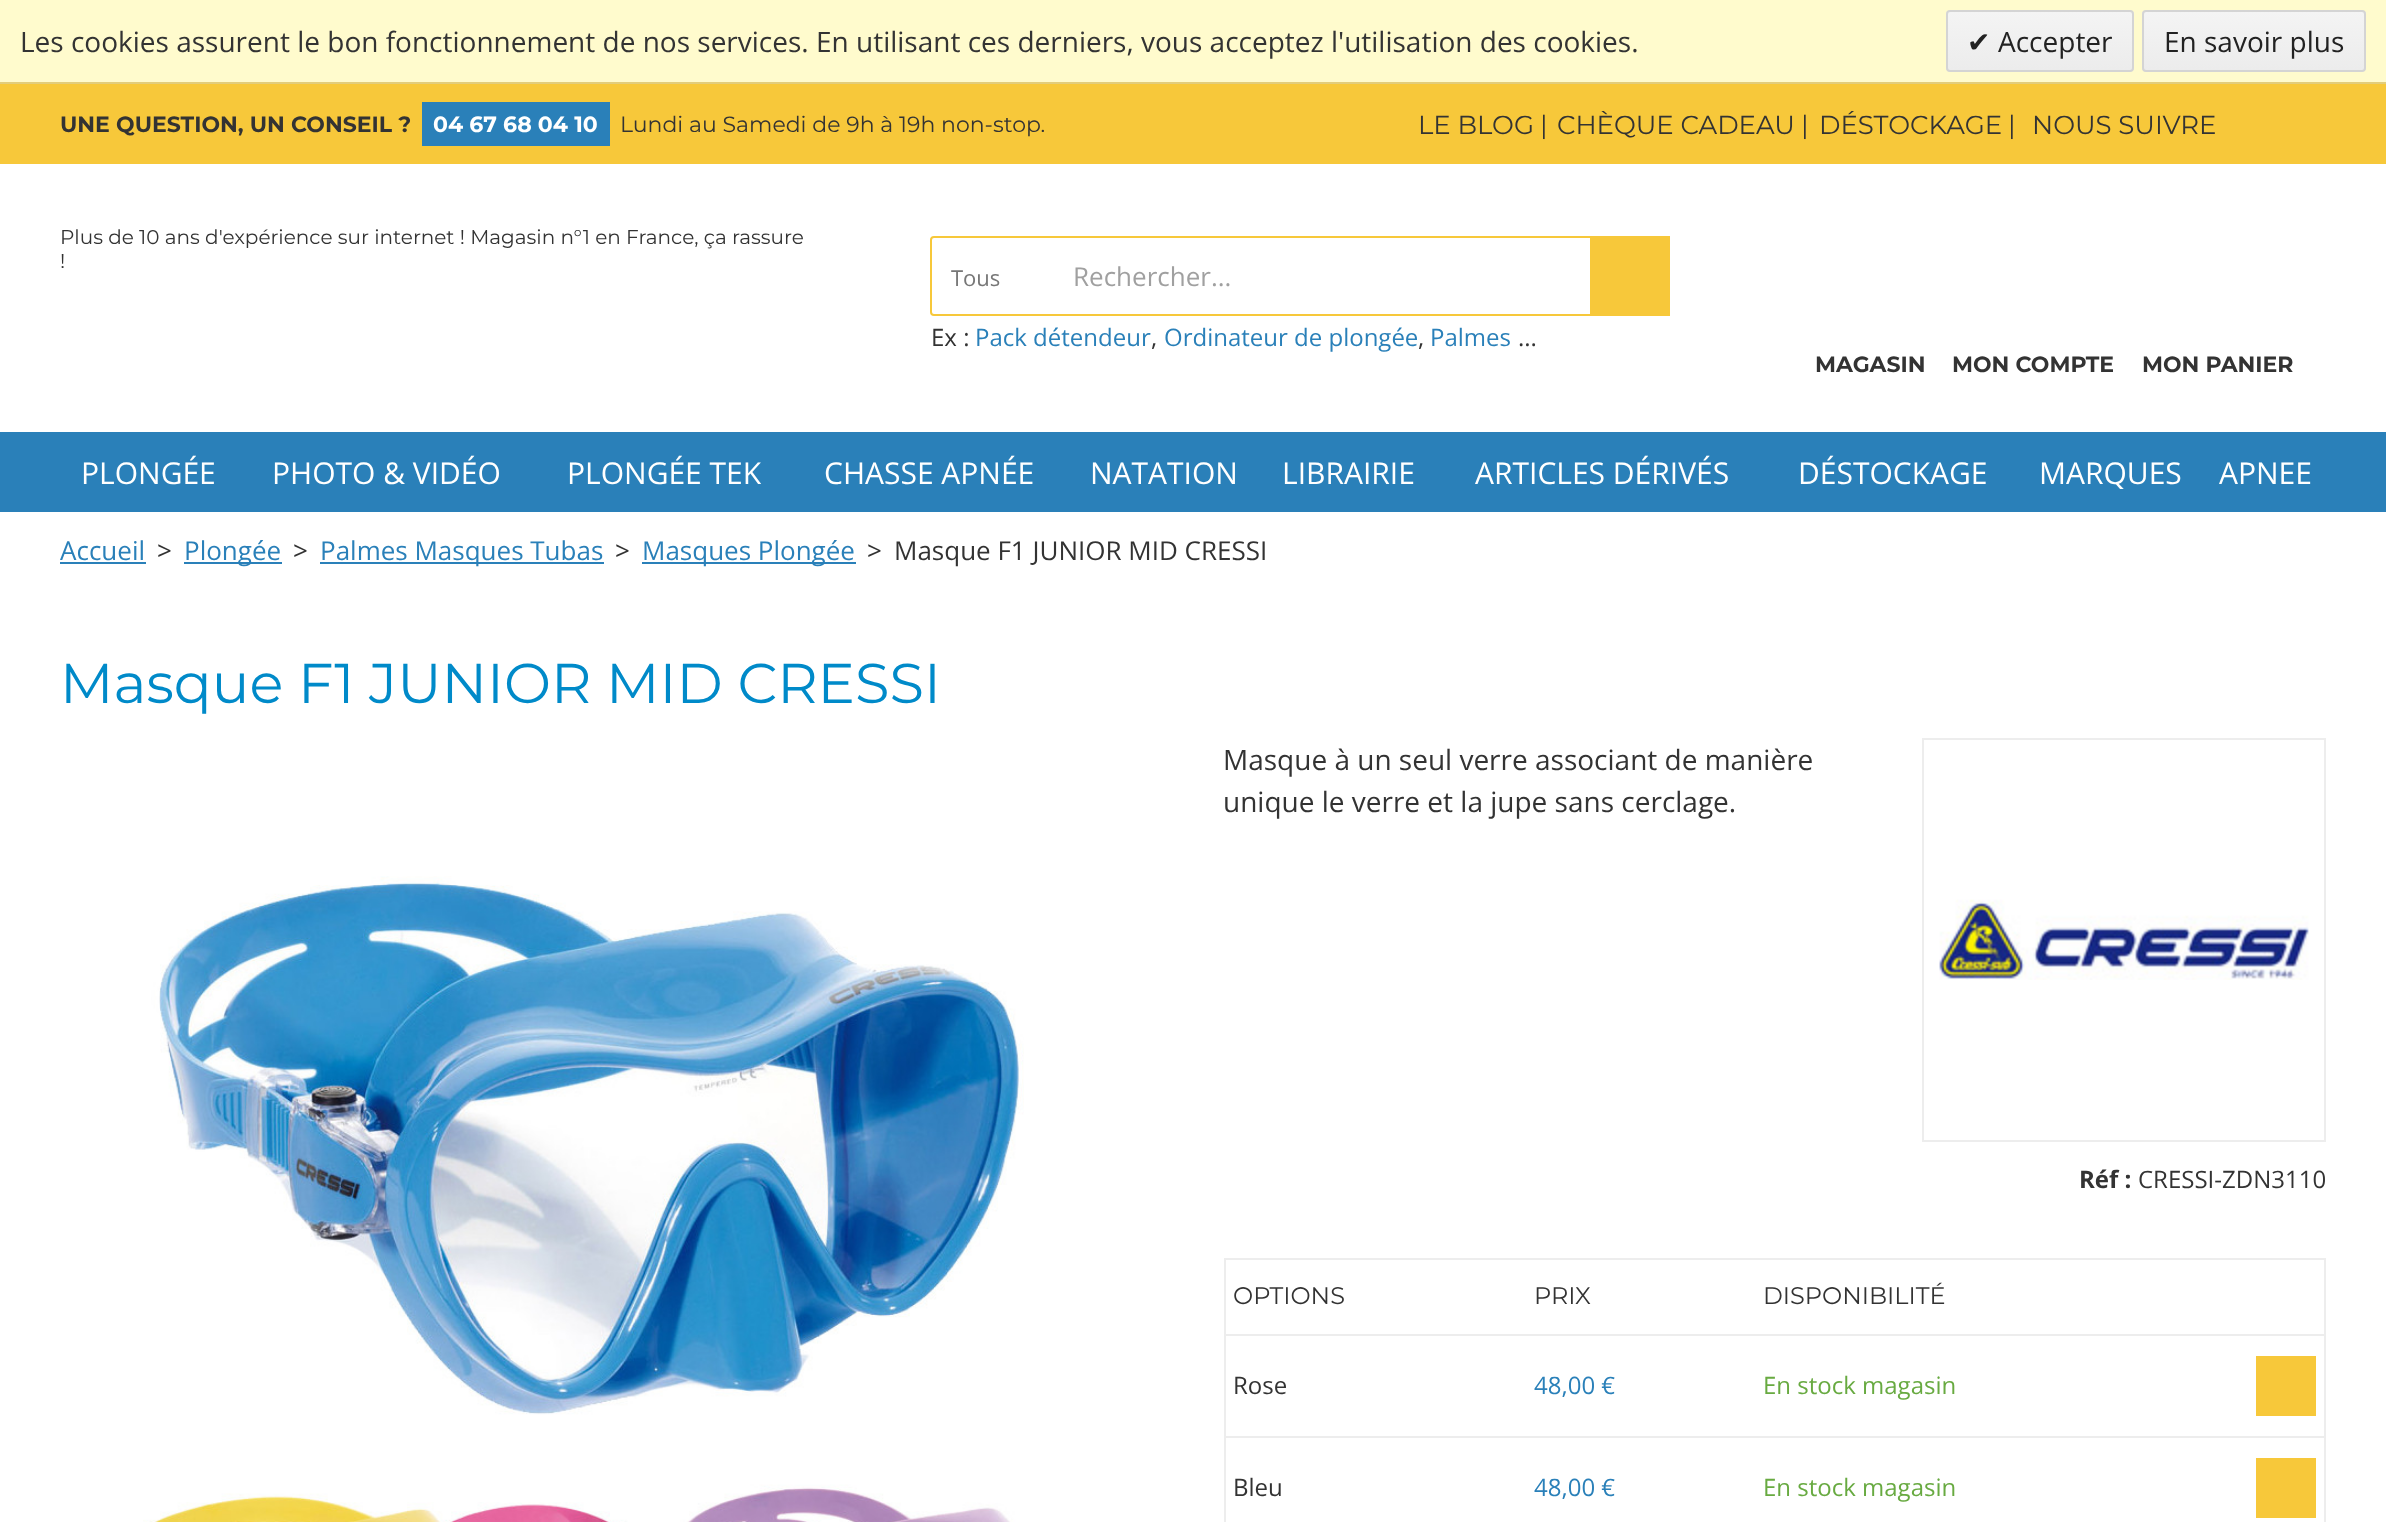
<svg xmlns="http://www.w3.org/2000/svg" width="2386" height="1522">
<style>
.a{font:28px Open Sans;fill:#333}
.b{font:28px DejaVu Sans;fill:#222}
.c{font:28px Open Sans;fill:#222}
.d{font:bold 22px Montserrat;fill:#333}
.e{font:bold 22px Montserrat;fill:#fff}
.f{font:22px Montserrat;fill:#333}
.g{font:26px Montserrat;fill:#333}
.h{font:20px Montserrat;fill:#333}
.i{font:22px Open Sans;fill:#777}
.j{font:26px Open Sans;fill:#a0a0a0}
.k{font:24px Open Sans;fill:#333}
.l{font:24px Open Sans;fill:#2a80b9}
.m{font:30px Open Sans;fill:#fff}
.n{font:26px Open Sans;fill:#2a80b9}
.o{font:26px Open Sans;fill:#333}
.p{font:56px Montserrat;fill:#008ac9}
.q{font:bold 24px Open Sans;fill:#333}
.r{font:24px Montserrat;fill:#333}
.s{font:24px Open Sans;fill:#68aa41}
</style>
<defs>
<clipPath id="clip1"><rect x="1946" y="10" width="188" height="62" rx="4"/></clipPath>
<linearGradient id="g1" gradientUnits="userSpaceOnUse" x1="2040" y1="12" x2="2040" y2="70"><stop offset="0" stop-color="#f4f4f4"/><stop offset="1" stop-color="#ececec"/></linearGradient>
<clipPath id="clip2"><rect x="2142" y="10" width="224" height="62" rx="4"/></clipPath>
<linearGradient id="g2" gradientUnits="userSpaceOnUse" x1="2254" y1="12" x2="2254" y2="70"><stop offset="0" stop-color="#f4f4f4"/><stop offset="1" stop-color="#ececec"/></linearGradient>
</defs>
<rect width="100%" height="100%" fill="#fff"/>
<path fill="#fffbcd" d="M0 0h2386v82H0z"/>
<path fill="#e2cd7b" d="M0 82h2386v2H0z"/>
<g clip-path="url(#clip1)">
<path fill="url(#g1)" d="M1946 12h188v58H1946z"/>
</g>
<rect fill="none" stroke="#d4d4d4" stroke-width="2" x="1947" y="11" width="186" height="60" rx="3"/>
<g clip-path="url(#clip2)">
<path fill="url(#g2)" d="M2142 12h224v58H2142z"/>
</g>
<rect fill="none" stroke="#d4d4d4" stroke-width="2" x="2143" y="11" width="222" height="60" rx="3"/>
<path fill="#f7c83a" d="M0 84h2386v80H0z"/>
<path fill="#2a80b9" d="M422 102h188v44H422z"/>
<rect fill="none" stroke="#f7c83a" stroke-width="2" x="931" y="237" width="738" height="78" rx="3"/>
<path fill="#f7c83a" d="M1590 236h80v80H1590z"/>
<path fill="#2a80b9" d="M0 432h2386v80H0z"/>
<path fill="#2a80b9" d="M60 562h86v2H60z"/>
<path fill="#2a80b9" d="M184 562h98v2H184z"/>
<path fill="#2a80b9" d="M320 562h284v2H320z"/>
<path fill="#2a80b9" d="M642 562h214v2H642z"/>
<image href="1.png" x="143" y="876" width="881" height="646"/>
<path fill="none" stroke="#ededed" stroke-width="2" d="M1923 739h402v402H1923z"/>
<image href="2.png" x="1939" y="899" width="370" height="81"/>
<path fill="none" stroke="#ededed" stroke-width="2" d="M1225 1259h1100v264H1225z"/>
<path fill="#ededed" d="M1226 1334h1098v2H1226z"/>
<path fill="#ededed" d="M1226 1436h1098v2H1226z"/>
<path fill="#f7c83a" d="M2256 1356h60v60H2256z"/>
<path fill="#f7c83a" d="M2256 1458h60v60H2256z"/>
<text class="a" x="20" y="52">Les cookies assurent le bon fonctionnement de nos services. En utilisant ces derniers, vous acceptez l'utilisation des cookies.</text>
<text class="b" x="1967" y="52">✔</text>
<text class="c" x="1998" y="52">Accepter</text>
<text class="c" x="2164" y="52">En savoir plus</text>
<text class="d" x="60" y="132">UNE QUESTION, UN CONSEIL ?</text>
<text class="e" x="433" y="132">04 67 68 04 10</text>
<text class="f" x="620" y="132">Lundi au Samedi de 9h à 19h non-stop.</text>
<text class="g" x="1418" y="134">LE BLOG</text>
<text class="g" x="1540" y="134">|</text>
<text class="g" x="1557" y="134">CHÈQUE CADEAU</text>
<text class="g" x="1801" y="134">|</text>
<text class="g" x="1819" y="134">DÉSTOCKAGE</text>
<text class="g" x="2008" y="134">|</text>
<text class="g" x="2032" y="134">NOUS SUIVRE</text>
<text class="h" x="60" y="244">Plus de 10 ans d'expérience sur internet ! Magasin n°1 en France, ça rassure</text>
<text class="h" x="60" y="268">!</text>
<text class="d" x="1815" y="372">MAGASIN</text>
<text class="d" x="1952" y="372">MON COMPTE</text>
<text class="d" x="2142" y="372">MON PANIER</text>
<text class="i" x="951" y="286">Tous</text>
<text class="j" x="1073" y="286">Rechercher...</text>
<text class="k" x="931" y="346">Ex :</text>
<text class="l" x="975" y="346">Pack détendeur</text>
<text class="k" x="1151" y="346">,</text>
<text class="l" x="1164" y="346">Ordinateur de plongée</text>
<text class="k" x="1418" y="346">,</text>
<text class="l" x="1430" y="346">Palmes</text>
<text class="k" x="1518" y="346">...</text>
<text class="m" x="81" y="484">PLONGÉE</text>
<text class="m" x="272" y="484">PHOTO &amp; VIDÉO</text>
<text class="m" x="567" y="484">PLONGÉE TEK</text>
<text class="m" x="824" y="484">CHASSE APNÉE</text>
<text class="m" x="1090" y="484">NATATION</text>
<text class="m" x="1282" y="484">LIBRAIRIE</text>
<text class="m" x="1475" y="484">ARTICLES DÉRIVÉS</text>
<text class="m" x="1798" y="484">DÉSTOCKAGE</text>
<text class="m" x="2039" y="484">MARQUES</text>
<text class="m" x="2219" y="484">APNEE</text>
<text class="n" x="60" y="560">Accueil</text>
<text class="o" x="157" y="560">&gt;</text>
<text class="n" x="184" y="560">Plongée</text>
<text class="o" x="293" y="560">&gt;</text>
<text class="n" x="320" y="560">Palmes Masques Tubas</text>
<text class="o" x="615" y="560">&gt;</text>
<text class="n" x="642" y="560">Masques Plongée</text>
<text class="o" x="867" y="560">&gt;</text>
<text class="o" x="894" y="560">Masque F1 JUNIOR MID CRESSI</text>
<text class="p" x="60" y="703">Masque F1 JUNIOR MID CRESSI</text>
<text class="a" x="1223" y="770">Masque à un seul verre associant de manière</text>
<text class="a" x="1223" y="812">unique le verre et la jupe sans cerclage.</text>
<text class="q" x="2079" y="1188">Réf :</text>
<text class="k" x="2138" y="1188">CRESSI-ZDN3110</text>
<text class="r" x="1233" y="1304">OPTIONS</text>
<text class="r" x="1534" y="1304">PRIX</text>
<text class="r" x="1763" y="1304">DISPONIBILITÉ</text>
<text class="k" x="1233" y="1394">Rose</text>
<text class="l" x="1534" y="1394">48,00 €</text>
<text class="s" x="1763" y="1394">En stock magasin</text>
<text class="k" x="1233" y="1496">Bleu</text>
<text class="l" x="1534" y="1496">48,00 €</text>
<text class="s" x="1763" y="1496">En stock magasin</text>
</svg>
